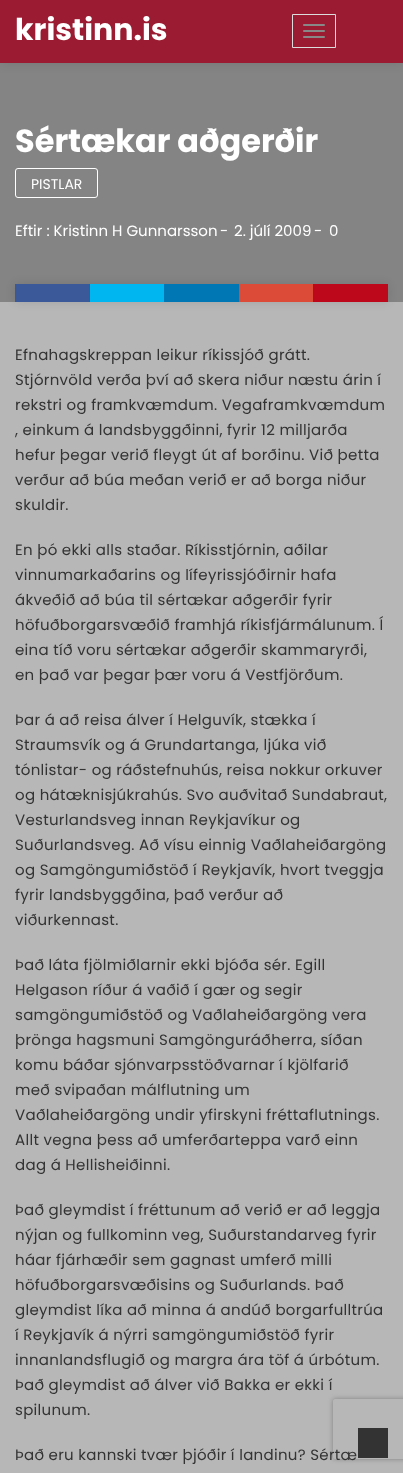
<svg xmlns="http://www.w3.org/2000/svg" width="403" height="1473">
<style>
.a{font:bold 30px Poppins;fill:#fff}
.b{font:bold 32px Poppins;fill:#fff}
.c{font:14px Poppins;fill:#fff}
.d{font:15px Poppins;fill:#fff}
.e{font:15px Poppins;letter-spacing:0.3px;fill:#333}
</style>
<defs>
<clipPath id="clip1"><path d="M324 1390h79v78h-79zm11 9h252c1 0 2 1 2 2v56c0 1-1 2-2 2h-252c-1 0-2-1-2-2v-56c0-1 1-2 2-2z" clip-rule="evenodd"/></clipPath>
</defs>
<rect width="100%" height="100%" fill="#b7b7b7"/>
<path fill="#848484" d="M0 63h403v239H0z"/>
<path fill="#0000001a" filter="blur(5.5px)" d="M0 0h403v63H0z"/>
<path fill="#9a1b32" d="M0 0h403v63H0z"/>
<path fill="none" stroke="#ddd" d="M292.5 14.5h43v33H292.5z"/>
<rect fill="#888" x="303" y="24" width="22" height="2" rx="1"/>
<rect fill="#888" x="303" y="30" width="22" height="2" rx="1"/>
<rect fill="#888" x="303" y="36" width="22" height="2" rx="1"/>
<rect fill="none" stroke="#fff" x="15.5" y="168.5" width="82" height="29" rx="2.5"/>
<path fill="#0000001a" filter="blur(5px)" d="M15 284h373v18H15z"/>
<path fill="#3b5998" d="M15 284h75v18H15z"/>
<path fill="#00b6f1" d="M90 284h74v18H90z"/>
<path fill="#0077b5" d="M164 284h75v18H164z"/>
<path fill="#dc4a38" d="M239 284h74v18H239z"/>
<path fill="#bd081b" d="M313 284h75v18H313z"/>
<path fill="#333" d="M358 1428h30v30H358z"/>
<g clip-path="url(#clip1)">
<rect fill="#808080" filter="blur(2.5px)" x="333" y="1399" width="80" height="60" rx="2"/>
</g>
<text class="a" x="15" y="40">kristinn.is</text>
<text class="b" x="15" y="152">Sértækar aðgerðir</text>
<text class="c" x="31" y="189">PISTLAR</text>
<text class="d" x="15" y="236">Eftir : Kristinn H Gunnarsson</text>
<text class="d" x="220" y="236">-</text>
<text class="d" x="234" y="236">2. júlí 2009</text>
<text class="d" x="314" y="236">-</text>
<text class="d" x="329" y="236">0</text>
<text class="e" x="15" y="360">Efnahagskreppan leikur ríkissjóð grátt.</text>
<text class="e" x="15" y="385">Stjórnvöld verða því að skera niður næstu árin í</text>
<text class="e" x="15" y="410">rekstri og framkvæmdum. Vegaframkvæmdum</text>
<text class="e" x="15" y="435">, einkum á landsbyggðinni, fyrir 12 milljarða</text>
<text class="e" x="15" y="460">hefur þegar verið fleygt út af borðinu. Við þetta</text>
<text class="e" x="15" y="485">verður að búa meðan verið er að borga niður</text>
<text class="e" x="15" y="510">skuldir.</text>
<text class="e" x="15" y="555">En þó ekki alls staðar. Ríkisstjórnin, aðilar</text>
<text class="e" x="15" y="580">vinnumarkaðarins og lífeyrissjóðirnir hafa</text>
<text class="e" x="15" y="605">ákveðið að búa til sértækar aðgerðir fyrir</text>
<text class="e" x="15" y="630">höfuðborgarsvæðið framhjá ríkisfjármálunum. Í</text>
<text class="e" x="15" y="655">eina tíð voru sértækar aðgerðir skammaryrði,</text>
<text class="e" x="15" y="680">en það var þegar þær voru á Vestfjörðum.</text>
<text class="e" x="15" y="725">Þar á að reisa álver í Helguvík, stækka í</text>
<text class="e" x="15" y="750">Straumsvík og á Grundartanga, ljúka við</text>
<text class="e" x="15" y="775">tónlistar- og ráðstefnuhús, reisa nokkur orkuver</text>
<text class="e" x="15" y="800">og hátæknisjúkrahús. Svo auðvitað Sundabraut,</text>
<text class="e" x="15" y="825">Vesturlandsveg innan Reykjavíkur og</text>
<text class="e" x="15" y="850">Suðurlandsveg. Að vísu einnig Vaðlaheiðargöng</text>
<text class="e" x="15" y="875">og Samgöngumiðstöð í Reykjavík, hvort tveggja</text>
<text class="e" x="15" y="900">fyrir landsbyggðina, það verður að</text>
<text class="e" x="15" y="925">viðurkennast.</text>
<text class="e" x="15" y="970">Það láta fjölmiðlarnir ekki bjóða sér. Egill</text>
<text class="e" x="15" y="995">Helgason ríður á vaðið í gær og segir</text>
<text class="e" x="15" y="1020">samgöngumiðstöð og Vaðlaheiðargöng vera</text>
<text class="e" x="15" y="1045">þrönga hagsmuni Samgönguráðherra, síðan</text>
<text class="e" x="15" y="1070">komu báðar sjónvarpsstöðvarnar í kjölfarið</text>
<text class="e" x="15" y="1095">með svipaðan málflutning um</text>
<text class="e" x="15" y="1120">Vaðlaheiðargöng undir yfirskyni fréttaflutnings.</text>
<text class="e" x="15" y="1145">Allt vegna þess að umferðarteppa varð einn</text>
<text class="e" x="15" y="1170">dag á Hellisheiðinni.</text>
<text class="e" x="15" y="1215">Það gleymdist í fréttunum að verið er að leggja</text>
<text class="e" x="15" y="1240">nýjan og fullkominn veg, Suðurstandarveg fyrir</text>
<text class="e" x="15" y="1265">háar fjárhæðir sem gagnast umferð milli</text>
<text class="e" x="15" y="1290">höfuðborgarsvæðisins og Suðurlands. Það</text>
<text class="e" x="15" y="1315">gleymdist líka að minna á andúð borgarfulltrúa</text>
<text class="e" x="15" y="1340">í Reykjavík á nýrri samgöngumiðstöð fyrir</text>
<text class="e" x="15" y="1365">innanlandsflugið og margra ára töf á úrbótum.</text>
<text class="e" x="15" y="1390">Það gleymdist að álver við Bakka er ekki í</text>
<text class="e" x="15" y="1415">spilunum.</text>
<text class="e" x="15" y="1460">Það eru kannski tvær þjóðir í landinu? Sértæ</text>
</svg>
